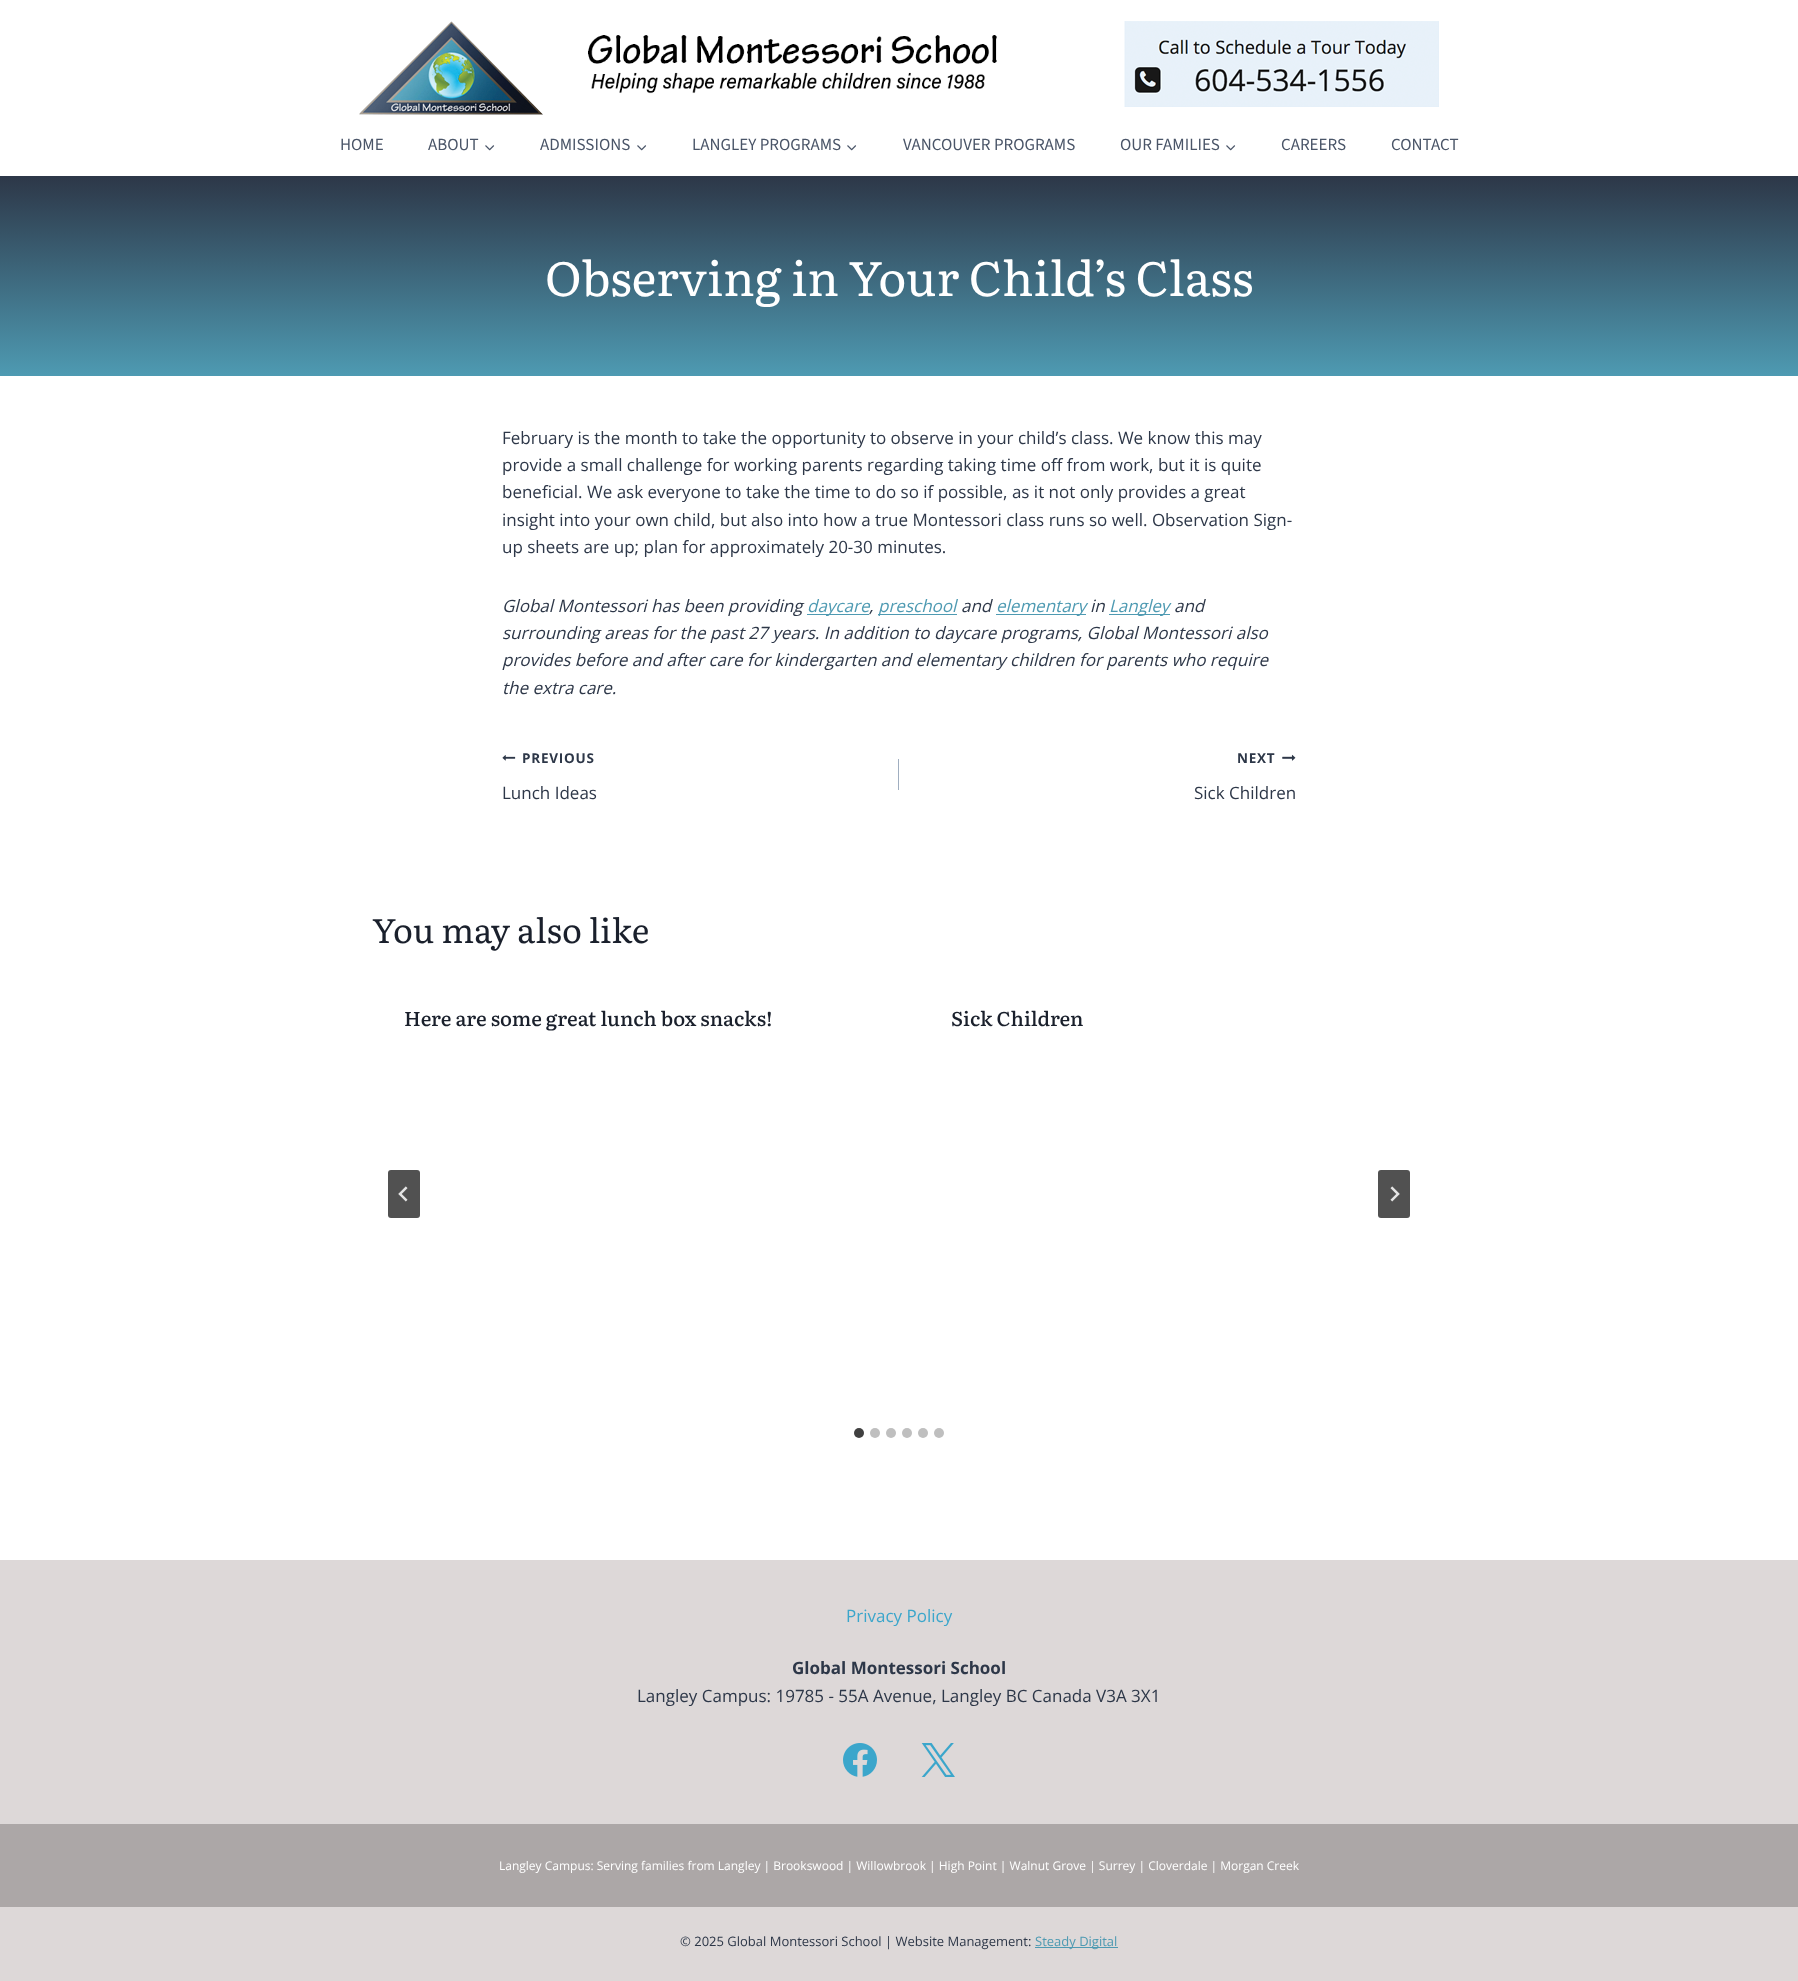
<svg xmlns="http://www.w3.org/2000/svg" width="1798" height="1981">
<style>
.a{font:200 17px 'Source Sans 3';fill:#4a5568}
.b{font:48px Literata;fill:#fff}
.c{font:17px Open Sans;fill:#2d3748}
.d{font:italic 17px Open Sans;fill:#2d3748}
.e{font:italic 17px Open Sans;fill:#4e9ab2}
.f{font:bold 13.5px Open Sans;letter-spacing:0.75px;fill:#2d3748}
.g{font:34px Literata;fill:#1a202c}
.h{font:500 20px Literata;fill:#1a202c}
.i{font:17px Open Sans;fill:#3ba6cb}
.j{font:bold 17px Open Sans;fill:#2d3748}
.k{font:12px Open Sans;fill:#fff}
.l{font:13px Open Sans;fill:#2d3748}
.m{font:13px Open Sans;fill:#4e9ab2}
</style>
<defs>
<linearGradient id="g1" gradientUnits="userSpaceOnUse" x1="899" y1="176" x2="899" y2="376"><stop offset="0" stop-color="#2d3748"/><stop offset="1" stop-color="#4e9ab2"/></linearGradient>
</defs>
<rect width="100%" height="100%" fill="#fff"/>
<image href="1.png" x="359" y="21" width="184" height="94"/>
<image href="2.png" x="588" y="35" width="409" height="59"/>
<image href="3.png" x="1124" y="21" width="315" height="86"/>
<image href="4.png" x="485" y="145" width="10" height="6"/>
<image href="4.png" x="637" y="145" width="10" height="6"/>
<image href="4.png" x="847" y="145" width="10" height="6"/>
<image href="4.png" x="1226" y="145" width="10" height="6"/>
<path fill="url(#g1)" d="M0 176h1798v200H0z"/>
<path fill="#4e9ab2" d="M807 614h62v1H807z"/>
<path fill="#4e9ab2" d="M878 614h79v1H878z"/>
<path fill="#4e9ab2" d="M996 614h90v1H996z"/>
<path fill="#4e9ab2" d="M1109 614h61v1H1109z"/>
<image href="5.png" x="502" y="755" width="14" height="6"/>
<path fill="#a0aec0" d="M898 759h1v31H898z"/>
<image href="6.png" x="1282" y="754" width="14" height="7"/>
<rect fill="#515151" x="388" y="1170" width="32" height="48" rx="3"/>
<image href="7.png" x="398" y="1186" width="10" height="16"/>
<rect fill="#515151" x="1378" y="1170" width="32" height="48" rx="3"/>
<image href="8.png" x="1390" y="1186" width="10" height="16"/>
<circle fill="#404040" cx="859" cy="1433" r="5"/>
<circle fill="#bfbfbf" cx="875" cy="1433" r="5"/>
<circle fill="#bfbfbf" cx="891" cy="1433" r="5"/>
<circle fill="#bfbfbf" cx="907" cy="1433" r="5"/>
<circle fill="#bfbfbf" cx="923" cy="1433" r="5"/>
<circle fill="#bfbfbf" cx="939" cy="1433" r="5"/>
<path fill="#ddd8d8" d="M0 1560h1798v264H0z"/>
<image href="9.png" x="843" y="1743" width="34" height="34"/>
<image href="10.png" x="921" y="1743" width="34" height="34"/>
<path fill="#aca7a7" d="M0 1824h1798v83H0z"/>
<path fill="#ddd8d8" d="M0 1907h1798v74H0z"/>
<path fill="#4e9ab2" d="M1035 1947h83v1H1035z"/>
<text class="a" x="340" y="150">HOME</text>
<text class="a" x="428" y="150">ABOUT</text>
<text class="a" x="540" y="150">ADMISSIONS</text>
<text class="a" x="692" y="150">LANGLEY PROGRAMS</text>
<text class="a" x="903" y="150">VANCOUVER PROGRAMS</text>
<text class="a" x="1120" y="150">OUR FAMILIES</text>
<text class="a" x="1281" y="150">CAREERS</text>
<text class="a" x="1391" y="150">CONTACT</text>
<text class="b" x="545" y="296">Observing in Your Child’s Class</text>
<text class="c" x="502" y="444">February is the month to take the opportunity to observe in your child’s class. We know this may</text>
<text class="c" x="502" y="471">provide a small challenge for working parents regarding taking time off from work, but it is quite</text>
<text class="c" x="502" y="498">beneficial. We ask everyone to take the time to do so if possible, as it not only provides a great</text>
<text class="c" x="502" y="526">insight into your own child, but also into how a true Montessori class runs so well. Observation Sign-</text>
<text class="c" x="502" y="553">up sheets are up; plan for approximately 20-30 minutes.</text>
<text class="d" x="502" y="612">Global Montessori has been providing</text>
<text class="e" x="807" y="612">daycare</text>
<text class="d" x="869" y="612">,</text>
<text class="e" x="878" y="612">preschool</text>
<text class="d" x="961" y="612">and</text>
<text class="e" x="996" y="612">elementary</text>
<text class="d" x="1090" y="612">in</text>
<text class="e" x="1109" y="612">Langley</text>
<text class="d" x="1174" y="612">and</text>
<text class="d" x="502" y="639">surrounding areas for the past 27 years. In addition to daycare programs, Global Montessori also</text>
<text class="d" x="502" y="666">provides before and after care for kindergarten and elementary children for parents who require</text>
<text class="d" x="502" y="694">the extra care.</text>
<text class="f" x="522" y="763">PREVIOUS</text>
<text class="c" x="502" y="799">Lunch Ideas</text>
<text class="f" x="1237" y="763">NEXT</text>
<text class="c" x="1194" y="799">Sick Children</text>
<text class="g" x="372" y="943">You may also like</text>
<text class="h" x="404" y="1026">Here are some great lunch box snacks!</text>
<text class="h" x="951" y="1026">Sick Children</text>
<text class="i" x="846" y="1622">Privacy Policy</text>
<text class="j" x="792" y="1674">Global Montessori School</text>
<text class="c" x="637" y="1702">Langley Campus: 19785 - 55A Avenue, Langley BC Canada V3A 3X1</text>
<text class="k" x="499" y="1870">Langley Campus: Serving families from Langley | Brookswood | Willowbrook | High Point | Walnut Grove | Surrey | Cloverdale | Morgan Creek</text>
<text class="l" x="680" y="1946">© 2025 Global Montessori School | Website Management:</text>
<text class="m" x="1035" y="1946">Steady Digital</text>
</svg>
